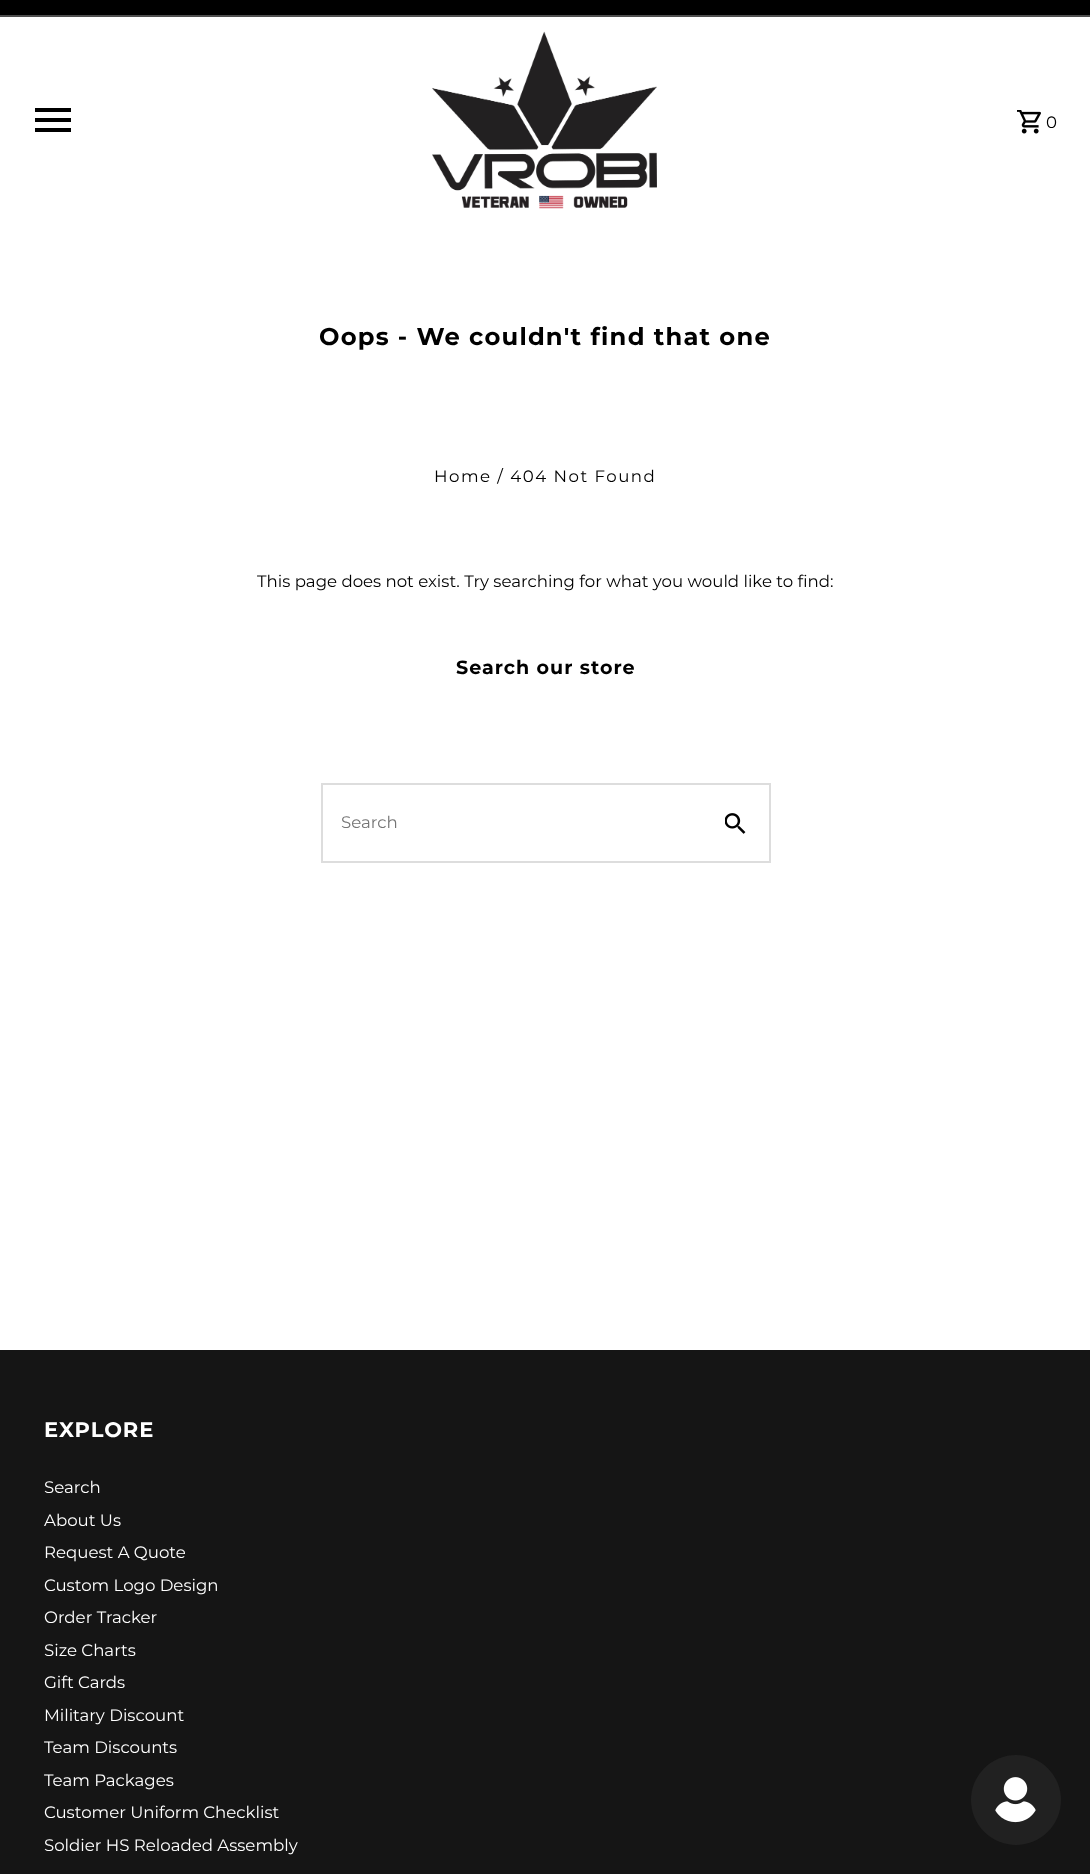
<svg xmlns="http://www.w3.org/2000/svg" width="1090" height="1874">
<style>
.a{font:16.6px Montserrat;fill:#000}
.b{font:bold 24.25px Montserrat;letter-spacing:1.2px;fill:#000}
.c{font:16.6px Montserrat;letter-spacing:1.5px;fill:#000}
.d{font:bold 19.1px Montserrat;letter-spacing:1px;fill:#000}
.e{font:16.6px Montserrat;fill:#757575}
.f{font:bold 21px Montserrat;letter-spacing:1px;fill:#fff}
.g{font:16.6px Montserrat;fill:#fff}
</style>
<rect width="100%" height="100%" fill="#fff"/>
<path fill="#4d4d4d" d="M0 15h1090v2H0z"/>
<path fill="#000" d="M0 0h1090v15H0z"/>
<path fill="#000" d="M35 128h36v4H35z"/>
<path fill="#000" d="M35 118h36v4H35z"/>
<path fill="#000" d="M35 108h36v4H35z"/>
<image href="1.png" x="432" y="31" width="225" height="178"/>
<image href="2.png" x="1017" y="110" width="24" height="24"/>
<path fill="none" stroke="#ddd" stroke-width="2" d="M322 784h448v78H322z"/>
<image href="3.png" x="725" y="813" width="21" height="21"/>
<path fill="#151515" d="M0 1350h1090v524H0z"/>
<circle fill="#212121" cx="1016" cy="1800" r="45"/>
<image href="4.png" x="995" y="1777" width="41" height="46"/>
<text class="a" x="1046" y="128">0</text>
<text class="b" x="319" y="345">Oops - We couldn't find that one</text>
<text class="c" x="434" y="482">Home / 404 Not Found</text>
<text class="a" x="257" y="587">This page does not exist. Try searching for what you would like to find:</text>
<text class="d" x="456" y="674">Search our store</text>
<text class="e" x="341" y="828">Search</text>
<text class="f" x="44" y="1437">EXPLORE</text>
<text class="g" x="44" y="1493">Search</text>
<text class="g" x="44" y="1526">About Us</text>
<text class="g" x="44" y="1558">Request A Quote</text>
<text class="g" x="44" y="1591">Custom Logo Design</text>
<text class="g" x="44" y="1623">Order Tracker</text>
<text class="g" x="44" y="1656">Size Charts</text>
<text class="g" x="44" y="1688">Gift Cards</text>
<text class="g" x="44" y="1721">Military Discount</text>
<text class="g" x="44" y="1753">Team Discounts</text>
<text class="g" x="44" y="1786">Team Packages</text>
<text class="g" x="44" y="1818">Customer Uniform Checklist</text>
<text class="g" x="44" y="1851">Soldier HS Reloaded Assembly</text>
</svg>
